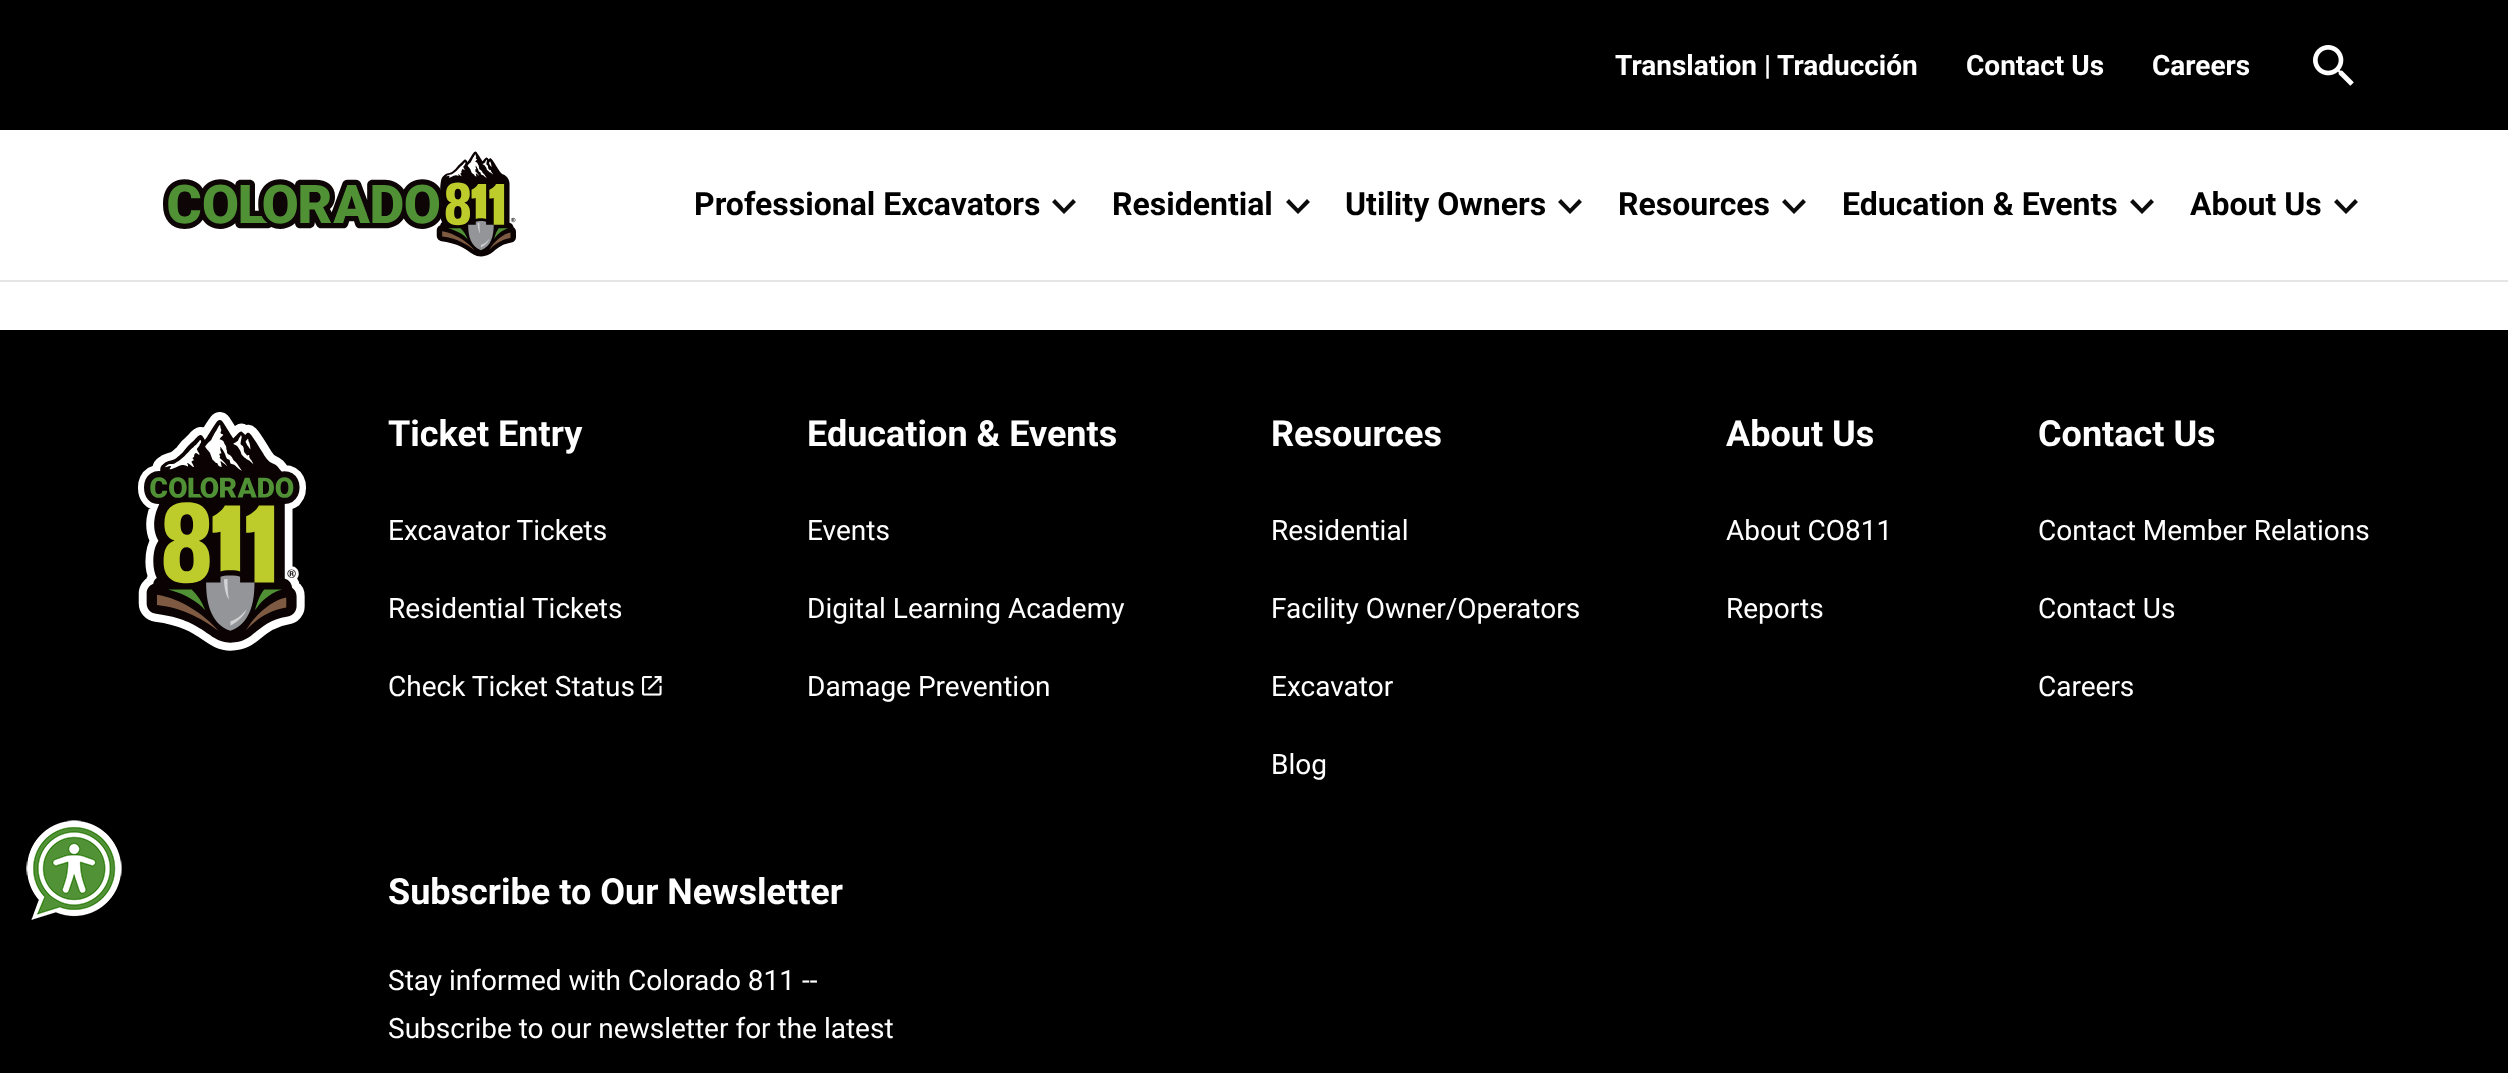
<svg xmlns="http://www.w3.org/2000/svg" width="2508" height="1073">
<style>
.a{font:bold 28px Roboto;fill:#fff}
.b{font:bold 32px Roboto;fill:#000}
.c{font:bold 36px Roboto;fill:#fff}
.d{font:28px Roboto;fill:#fff}
</style>
<rect width="100%" height="100%" fill="#fff"/>
<path fill="#e5e5e5" d="M0 280h2508v2H0z"/>
<path fill="#000" d="M0 0h2508v130H0z"/>
<image href="1.png" x="2313" y="45" width="41" height="41"/>
<image href="2.png" x="163" y="151" width="353" height="106"/>
<path fill="#0c0c0d" d="M1055 199l9 9.5l9-9.5l3 3l-12 12l-12-12z"/>
<path fill="#0c0c0d" d="M1289 199l9 9.5l9-9.5l3 3l-12 12l-12-12z"/>
<path fill="#0c0c0d" d="M1561 199l9 9.5l9-9.5l3 3l-12 12l-12-12z"/>
<path fill="#0c0c0d" d="M1785 199l9 9.5l9-9.5l3 3l-12 12l-12-12z"/>
<path fill="#0c0c0d" d="M2133 199l9 9.5l9-9.5l3 3l-12 12l-12-12z"/>
<path fill="#0c0c0d" d="M2337 199l9 9.5l9-9.5l3 3l-12 12l-12-12z"/>
<path fill="#000" d="M0 330h2508v743H0z"/>
<image href="3.png" x="26" y="820" width="96" height="100"/>
<image href="4.png" x="138" y="412" width="168" height="239"/>
<image href="5.png" x="642" y="676" width="20" height="20"/>
<text class="a" x="1615" y="75">Translation |</text>
<text class="a" x="1777" y="75">Traducción</text>
<text class="a" x="1966" y="75">Contact Us</text>
<text class="a" x="2152" y="75">Careers</text>
<text class="b" x="694" y="215">Professional Excavators</text>
<text class="b" x="1112" y="215">Residential</text>
<text class="b" x="1345" y="215">Utility Owners</text>
<text class="b" x="1618" y="215">Resources</text>
<text class="b" x="1842" y="215">Education &amp; Events</text>
<text class="b" x="2190" y="215">About Us</text>
<text class="c" x="388" y="446">Ticket Entry</text>
<text class="d" x="388" y="540">Excavator Tickets</text>
<text class="d" x="388" y="618">Residential Tickets</text>
<text class="d" x="388" y="696">Check Ticket Status</text>
<text class="c" x="807" y="446">Education &amp; Events</text>
<text class="d" x="807" y="540">Events</text>
<text class="d" x="807" y="618">Digital Learning Academy</text>
<text class="d" x="807" y="696">Damage Prevention</text>
<text class="c" x="1271" y="446">Resources</text>
<text class="d" x="1271" y="540">Residential</text>
<text class="d" x="1271" y="618">Facility Owner/Operators</text>
<text class="d" x="1271" y="696">Excavator</text>
<text class="d" x="1271" y="774">Blog</text>
<text class="c" x="1726" y="446">About Us</text>
<text class="d" x="1726" y="540">About CO811</text>
<text class="d" x="1726" y="618">Reports</text>
<text class="c" x="2038" y="446">Contact Us</text>
<text class="d" x="2038" y="540">Contact Member Relations</text>
<text class="d" x="2038" y="618">Contact Us</text>
<text class="d" x="2038" y="696">Careers</text>
<text class="c" x="388" y="904">Subscribe to Our Newsletter</text>
<text class="d" x="388" y="990">Stay informed with Colorado 811 --</text>
<text class="d" x="388" y="1038">Subscribe to our newsletter for the latest</text>
</svg>
